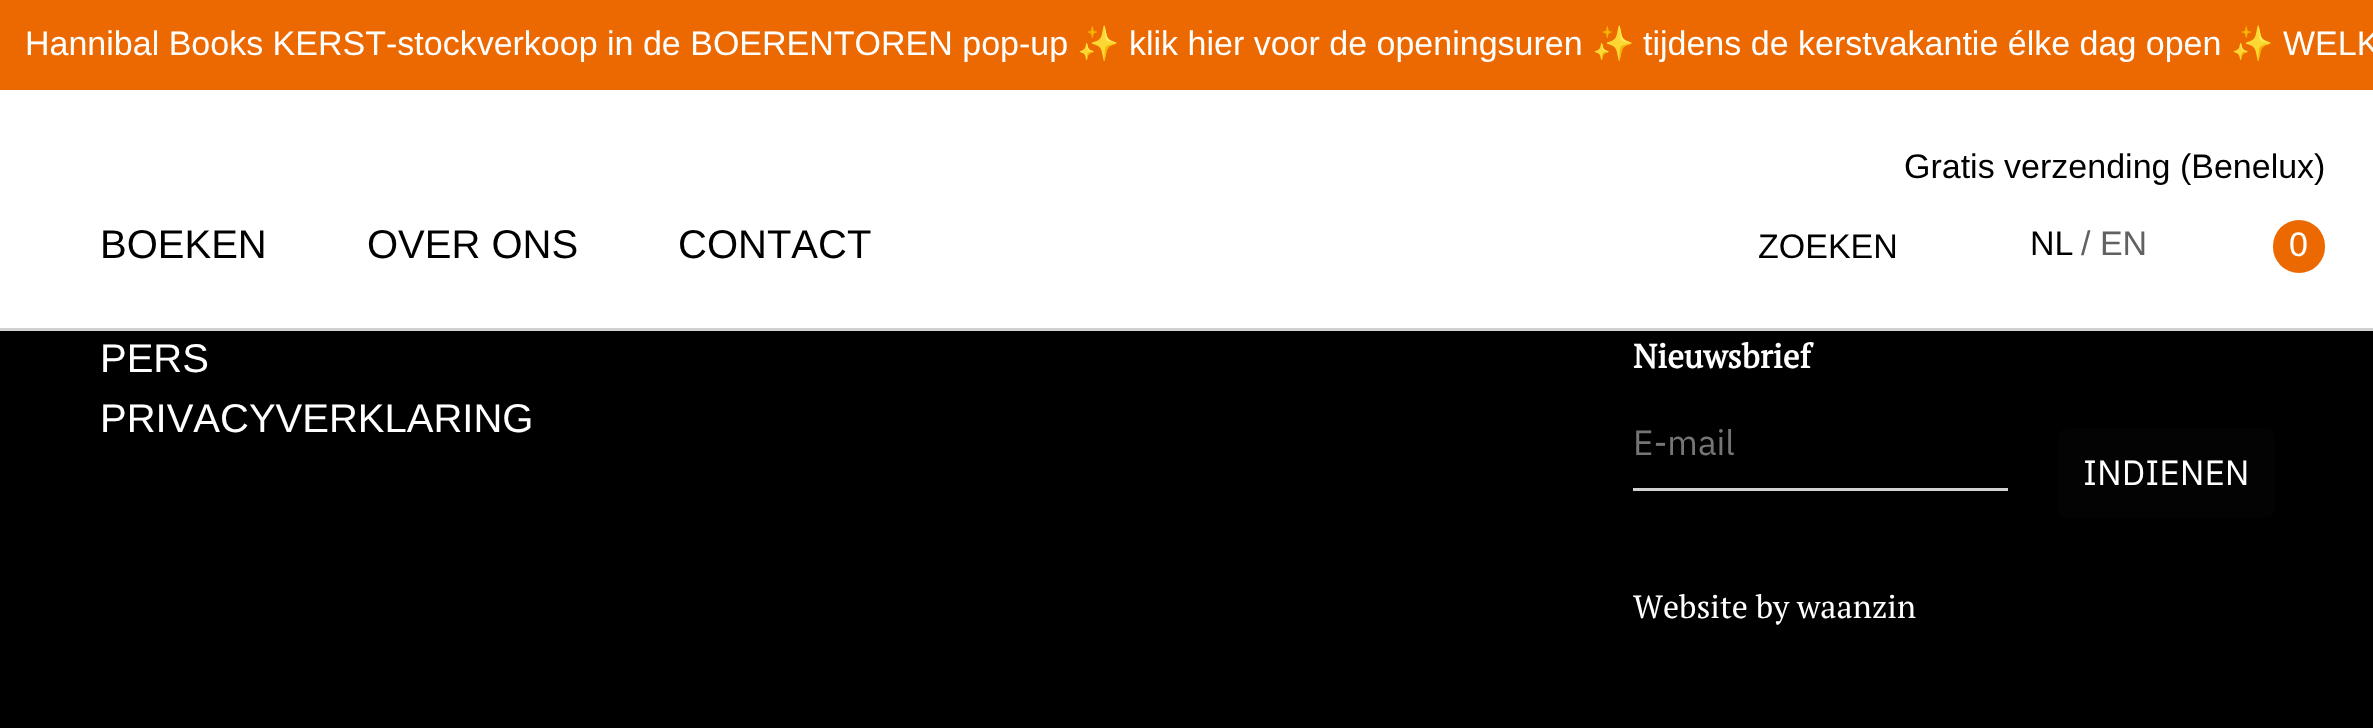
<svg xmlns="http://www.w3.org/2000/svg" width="2373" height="728">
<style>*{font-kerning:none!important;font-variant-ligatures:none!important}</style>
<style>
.a{font:34px Liberation Sans;fill:#fff}
.b{font:34px Noto Color Emoji;fill:#fff}
.c{font:40px Liberation Sans;fill:#000}
.d{font:34px Liberation Sans;fill:#000}
.e{font:34px Liberation Sans;fill:#616161}
.f{font:40px Liberation Sans;fill:#fff}
.g{font:bold 33.25px PT Serif;fill:#fff}
.h{font:35px IBM Plex Sans;fill:#757575}
.i{font:35px IBM Plex Sans;fill:#fff}
.j{font:32px PT Serif;fill:#fff}
</style>
<rect width="100%" height="100%" fill="#000"/>
<path fill="#fff" d="M0 90h2373v238H0z"/>
<path fill="#eb6900" d="M0 0h2373v90H0z"/>
<path fill="#d1d1d1" d="M0 328h2373v3H0z"/>
<rect fill="#eb6900" x="2273" y="220" width="52" height="53" rx="26"/>
<path fill="#d1d1d1" d="M1633 488h375v3H1633z"/>
<rect fill="#030303" x="2058" y="428" width="217" height="90" rx="10"/>
<text class="a" x="25" y="55">Hannibal Books KERST-stockverkoop in de BOERENTOREN pop-up</text>
<text class="b" x="1077" y="55">✨</text>
<text class="a" x="1129" y="55">klik hier voor de openingsuren</text>
<text class="b" x="1592" y="55">✨</text>
<text class="a" x="1643" y="55">tijdens de kerstvakantie élke dag open</text>
<text class="b" x="2231" y="55">✨</text>
<text class="a" x="2283" y="55">WELK</text>
<text class="c" x="100" y="258">BOEKEN</text>
<text class="c" x="367" y="258">OVER ONS</text>
<text class="c" x="678" y="258">CONTACT</text>
<text class="d" x="1904" y="178">Gratis verzending (Benelux)</text>
<text class="d" x="1758" y="258">ZOEKEN</text>
<text class="d" x="2030" y="255">NL</text>
<text class="e" x="2081" y="255">/ EN</text>
<text class="a" x="2289" y="256">0</text>
<text class="f" x="100" y="372">PERS</text>
<text class="f" x="100" y="432">PRIVACYVERKLARING</text>
<text class="g" x="1633" y="368">Nieuwsbrief</text>
<text class="h" x="1633" y="455">E-mail</text>
<text class="i" x="2083" y="485">INDIENEN</text>
<text class="j" x="1633" y="618">Website by waanzin</text>
</svg>
